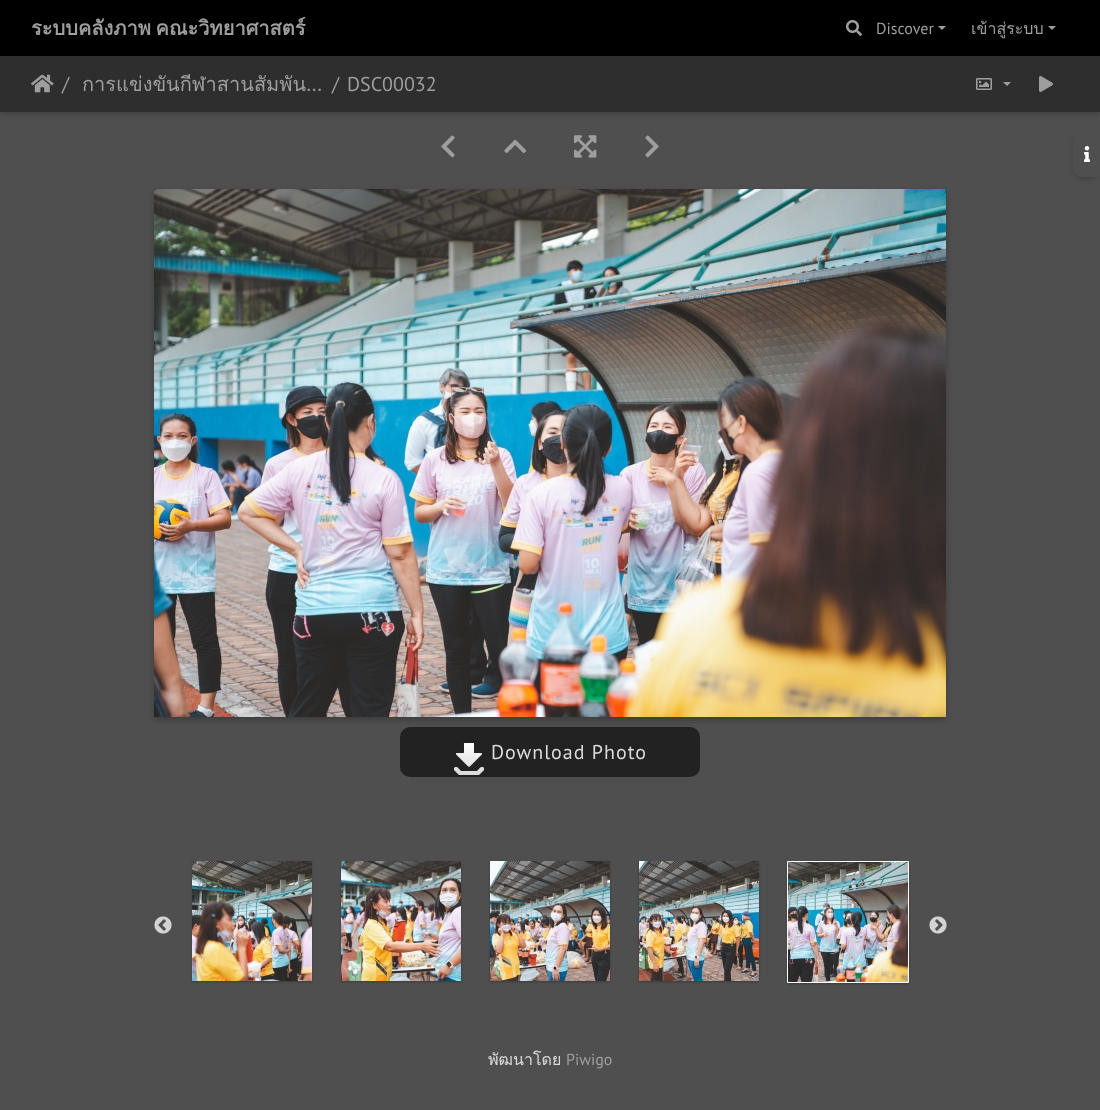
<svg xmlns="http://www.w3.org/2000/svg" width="1100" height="1110">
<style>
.a{font:bold 20px Loma;fill:#9e9e9e}
.b{font:16px PT Sans;fill:#9e9e9e}
.c{font:16px Loma;fill:#9e9e9e}
.d{font:20px PT Sans;fill:#9e9e9e}
.e{font:20px Loma;fill:#9e9e9e}
.f{font:20px PT Sans;letter-spacing:1px;fill:#dbdbdb}
.g{font:16px Loma;fill:#dbdbdb}
</style>
<rect width="100%" height="100%" fill="#4f4f4f"/>
<path fill="#00000033" filter="blur(2.5px)" d="M1 60h1098v54H1z"/>
<path fill="#000" d="M0 0h1100v56H0z"/>
<image href="1.png" x="846" y="20" width="16" height="16"/>
<path fill="#9e9e9e" d="M938 26h8l-4 4z"/>
<path fill="#9e9e9e" d="M1048 26h8l-4 4z"/>
<path fill="#2e2e2e" d="M0 56h1100v56H0z"/>
<image href="2.png" x="31" y="74" width="23" height="19"/>
<image href="3.png" x="976" y="78" width="16" height="12"/>
<path fill="#9e9e9e" d="M1003 82h8l-4 4z"/>
<image href="4.png" x="1039" y="76" width="14" height="16"/>
<image href="5.png" x="441" y="135" width="14" height="23"/>
<image href="6.png" x="504" y="139" width="22" height="14"/>
<image href="7.png" x="574" y="135" width="23" height="23"/>
<image href="8.png" x="645" y="135" width="14" height="23"/>
<rect fill="#00000033" filter="blur(2.5px)" x="1074" y="135" width="25" height="44" rx="9"/>
<path fill="#4f4f4f" d="M1083 131h17v46h-17c-5.5 0-10-4.5-10-10v-26c0-5.5 4.5-10 10-10z"/>
<path fill="#4f4f4f" fill-rule="evenodd" d="M1083 131h17v46h-17c-6 0-10-4-10-10v-26c0-6 4-10 10-10zm0 1h17v44h-17c-5 0-9-4-9-9v-26c0-5 4-9 9-9z"/>
<image href="9.png" x="1084" y="146" width="6" height="16"/>
<rect fill="#222" x="400" y="727" width="300" height="50" rx="10"/>
<path fill="#0000003b" filter="blur(3px)" d="M154 192h792v528H154z"/>
<image href="10.png" x="154" y="189" width="792" height="528"/>
<image href="11.png" x="454" y="743" width="30" height="32"/>
<image href="12.png" x="154" y="916" width="18" height="18"/>
<path fill="#0000003d" filter="blur(1px)" d="M192 862h120v120H192z"/>
<image href="13.png" x="192" y="861" width="120" height="120"/>
<path fill="#0000003d" filter="blur(1px)" d="M341 862h120v120H341z"/>
<image href="14.png" x="341" y="861" width="120" height="120"/>
<path fill="#0000003d" filter="blur(1px)" d="M490 862h120v120H490z"/>
<image href="15.png" x="490" y="861" width="120" height="120"/>
<path fill="#0000003d" filter="blur(1px)" d="M639 862h120v120H639z"/>
<image href="16.png" x="639" y="861" width="120" height="120"/>
<path fill="#0000003d" filter="blur(1px)" d="M787 862h122v122H787z"/>
<path fill="none" stroke="#fff" d="M787.5 861.5h121v121H787.5z"/>
<image href="17.png" x="788" y="862" width="120" height="120"/>
<image href="18.png" x="929" y="916" width="18" height="18"/>
<text class="a" x="31" y="35" word-spacing="-2">ระบบคลังภาพ คณะวิทยาศาสตร์</text>
<text class="b" x="876" y="34">Discover</text>
<text class="c" x="971" y="34">เข้าสู่ระบบ</text>
<text class="d" x="62" y="91">/</text>
<text class="e" x="82" y="91">การแข่งขันกีฬาสานสัมพัน…</text>
<text class="d" x="332" y="91">/</text>
<text class="d" x="347" y="91">DSC00032</text>
<text class="f" x="491" y="759">Download Photo</text>
<text class="g" x="488" y="1065">พัฒนาโดย</text>
<text class="b" x="566" y="1065">Piwigo</text>
</svg>
